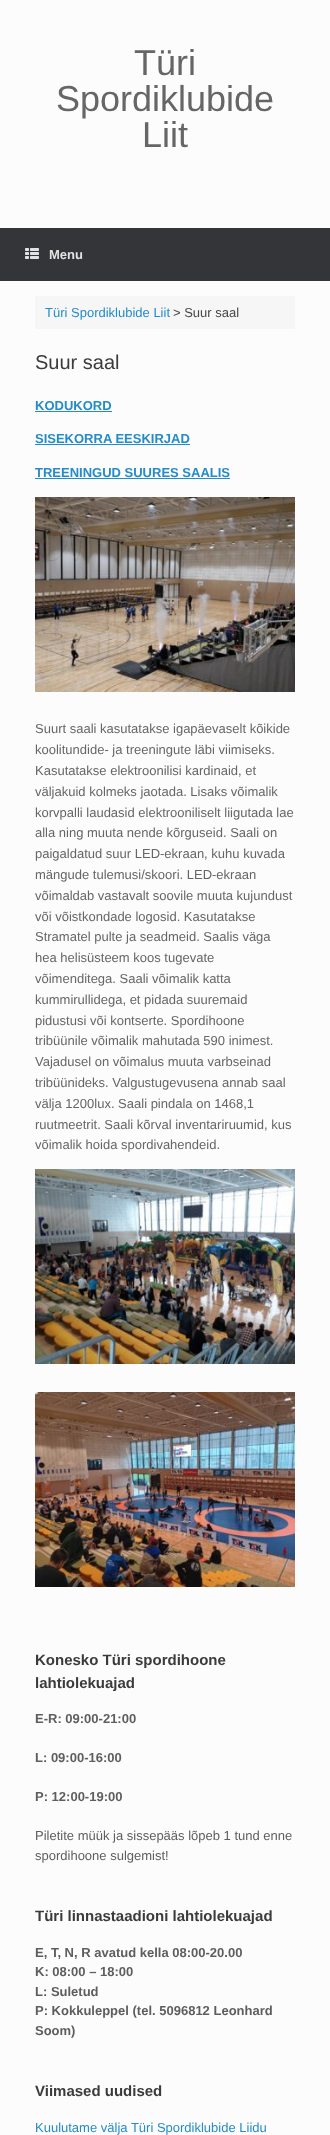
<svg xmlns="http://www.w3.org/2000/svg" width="330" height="2135">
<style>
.a{font:36px Liberation Sans;fill:#666}
.b{font:bold 13px Liberation Sans;fill:#e2e2e2}
.c{font:13px Liberation Sans;fill:#248cc8}
.d{font:13px Liberation Sans;fill:#474747}
.e{font:20px Liberation Sans;fill:#3b3b3b}
.f{font:bold 13px Liberation Sans;fill:#248cc8}
.g{font:13px Liberation Sans;fill:#666}
.h{font:bold 15px Liberation Sans;fill:#3b3b3b}
.i{font:bold 13px Liberation Sans;fill:#5e5e5e}
.j{font:13px Liberation Sans;fill:#5e5e5e}
</style>
<rect width="100%" height="100%" fill="#fcfcfc"/>
<path fill="#343538" d="M0 228h330v53H0z"/>
<image href="1.png" x="25" y="248" width="14" height="11"/>
<path fill="#f6f6f6" d="M35 296h260v33H35z"/>
<path fill="#248cc8" d="M35 411h77v1H35z"/>
<path fill="#248cc8" d="M35 444h155v1H35z"/>
<path fill="#248cc8" d="M35 478h195v1H35z"/>
<image href="2.png" x="35" y="497" width="260" height="195"/>
<image href="3.png" x="35" y="1169" width="260" height="195"/>
<image href="4.png" x="35" y="1392" width="260" height="195"/>
<text class="a" x="134" y="75">Türi</text>
<text class="a" x="56" y="111">Spordiklubide</text>
<text class="a" x="142" y="147">Liit</text>
<text class="b" x="49" y="259">Menu</text>
<text class="c" x="45" y="317">Türi Spordiklubide Liit</text>
<text class="d" x="173" y="317">&gt; Suur saal</text>
<text class="e" x="35" y="369">Suur saal</text>
<text class="f" x="35" y="410">KODUKORD</text>
<text class="f" x="35" y="443">SISEKORRA EESKIRJAD</text>
<text class="f" x="35" y="477">TREENINGUD SUURES SAALIS</text>
<text class="g" x="35" y="733">Suurt saali kasutatakse igapäevaselt kõikide</text>
<text class="g" x="35" y="754">koolitundide- ja treeningute läbi viimiseks.</text>
<text class="g" x="35" y="775">Kasutatakse elektroonilisi kardinaid, et</text>
<text class="g" x="35" y="796">väljakuid kolmeks jaotada. Lisaks võimalik</text>
<text class="g" x="35" y="817">korvpalli laudasid elektrooniliselt liigutada lae</text>
<text class="g" x="35" y="837">alla ning muuta nende kõrguseid. Saali on</text>
<text class="g" x="35" y="858">paigaldatud suur LED-ekraan, kuhu kuvada</text>
<text class="g" x="35" y="879">mängude tulemusi/skoori. LED-ekraan</text>
<text class="g" x="35" y="900">võimaldab vastavalt soovile muuta kujundust</text>
<text class="g" x="35" y="921">või võistkondade logosid. Kasutatakse</text>
<text class="g" x="35" y="941">Stramatel pulte ja seadmeid. Saalis väga</text>
<text class="g" x="35" y="962">hea helisüsteem koos tugevate</text>
<text class="g" x="35" y="983">võimenditega. Saali võimalik katta</text>
<text class="g" x="35" y="1004">kummirullidega, et pidada suuremaid</text>
<text class="g" x="35" y="1025">pidustusi või kontserte. Spordihoone</text>
<text class="g" x="35" y="1045">tribüünile võimalik mahutada 590 inimest.</text>
<text class="g" x="35" y="1066">Vajadusel on võimalus muuta varbseinad</text>
<text class="g" x="35" y="1087">tribüünideks. Valgustugevusena annab saal</text>
<text class="g" x="35" y="1108">välja 1200lux. Saali pindala on 1468,1</text>
<text class="g" x="35" y="1129">ruutmeetrit. Saali kõrval inventariruumid, kus</text>
<text class="g" x="35" y="1149">võimalik hoida spordivahendeid.</text>
<text class="h" x="35" y="1665">Konesko Türi spordihoone</text>
<text class="h" x="35" y="1688">lahtiolekuajad</text>
<text class="i" x="35" y="1723">E-R: 09:00-21:00</text>
<text class="i" x="35" y="1762">L: 09:00-16:00</text>
<text class="i" x="35" y="1801">P: 12:00-19:00</text>
<text class="j" x="35" y="1840">Piletite müük ja sissepääs lõpeb 1 tund enne</text>
<text class="j" x="35" y="1860">spordihoone sulgemist!</text>
<text class="h" x="35" y="1921">Türi linnastaadioni lahtiolekuajad</text>
<text class="i" x="35" y="1957">E, T, N, R avatud kella 08:00-20.00</text>
<text class="i" x="35" y="1976">K: 08:00 – 18:00</text>
<text class="i" x="35" y="1996">L: Suletud</text>
<text class="i" x="35" y="2015">P: Kokkuleppel (tel. 5096812 Leonhard</text>
<text class="i" x="35" y="2035">Soom)</text>
<text class="h" x="35" y="2096">Viimased uudised</text>
<text class="c" x="35" y="2132">Kuulutame välja Türi Spordiklubide Liidu</text>
</svg>
